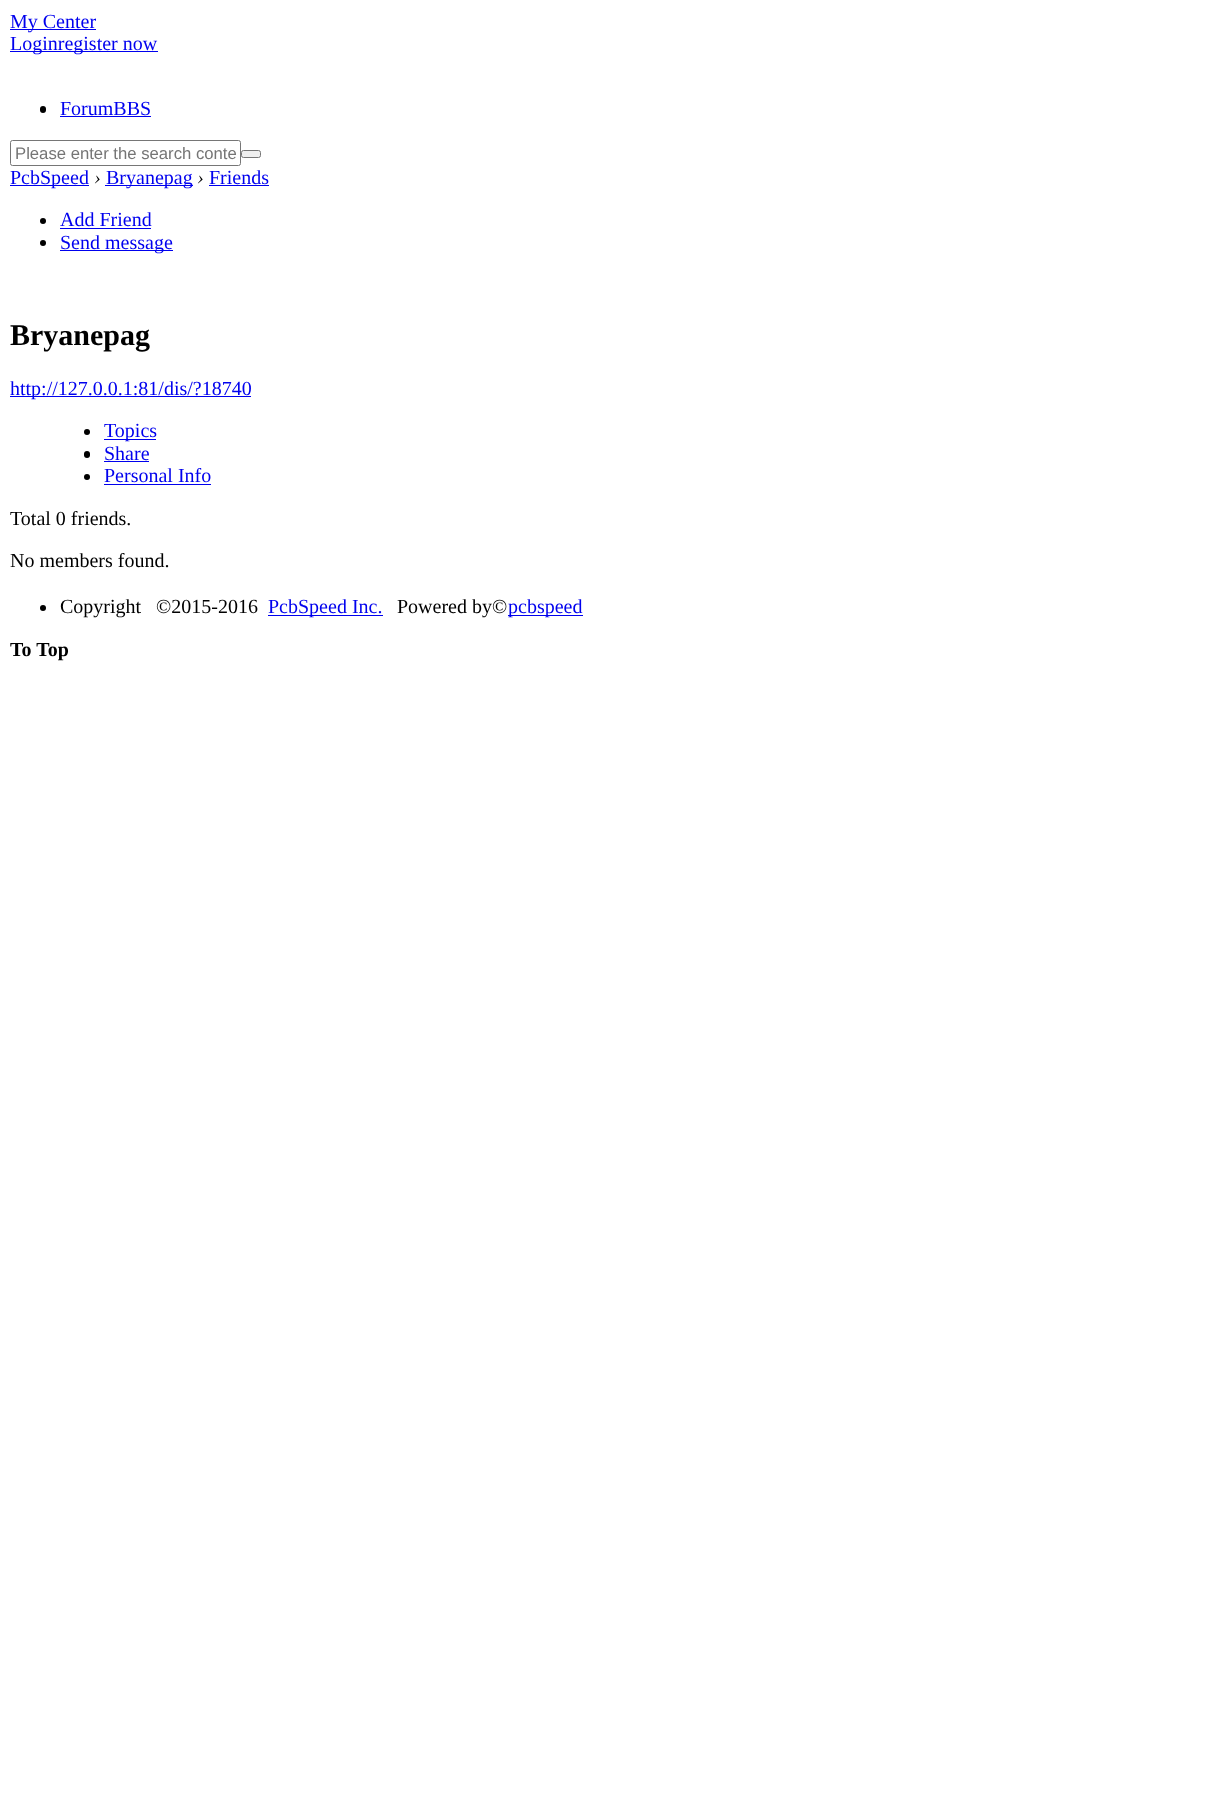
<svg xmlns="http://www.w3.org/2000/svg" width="1214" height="1807">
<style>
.a{font:20px Liberation Serif;fill:#00e}
.b{font:16.7px Liberation Sans;fill:#757575}
.c{font:italic 20px Liberation Serif;fill:#000}
.d{font:bold 30px Liberation Serif;fill:#000}
.e{font:20px Liberation Serif;fill:#000}
.f{font:bold 20px Liberation Serif;fill:#000}
</style>
<rect width="100%" height="100%" fill="#fff"/>
<path fill="#00e" d="M10 29h86v1H10z"/>
<path fill="#00e" d="M10 51h148v1H10z"/>
<rect fill="#000" x="40" y="106" width="6" height="7" rx="3"/>
<path fill="#00e" d="M60 116h91v1H60z"/>
<rect fill="none" stroke="#767676" x="10.5" y="140.5" width="230" height="25" rx="2"/>
<rect fill="#efefef" stroke="#767676" x="241.5" y="150.5" width="19" height="7" rx="2"/>
<path fill="#00e" d="M10 185h79v1H10z"/>
<path fill="#00e" d="M105 185h88v1H105z"/>
<path fill="#00e" d="M209 185h60v1H209z"/>
<circle fill="#000" cx="43" cy="221" r="3"/>
<path fill="#00e" d="M60 228h91v1H60z"/>
<circle fill="#000" cx="43" cy="243" r="3"/>
<path fill="#00e" d="M60 250h113v1H60z"/>
<path fill="#00e" d="M10 396h241v1H10z"/>
<circle fill="#000" cx="87" cy="432" r="3"/>
<path fill="#00e" d="M104 439h52v1H104z"/>
<rect fill="#000" x="84" y="451" width="6" height="7" rx="3"/>
<path fill="#00e" d="M104 461h45v1H104z"/>
<circle fill="#000" cx="87" cy="477" r="3"/>
<path fill="#00e" d="M104 484h107v1H104z"/>
<circle fill="#000" cx="43" cy="608" r="3"/>
<path fill="#00e" d="M268 615h115v1H268z"/>
<path fill="#00e" d="M508 615h75v1H508z"/>
<text class="a" x="10" y="28">My Center</text>
<text class="a" x="10" y="50">Loginregister now</text>
<text class="a" x="60" y="115">ForumBBS</text>
<text class="b" x="15" y="159">Please enter the search conte</text>
<text class="a" x="10" y="184">PcbSpeed</text>
<text class="c" x="94" y="184">›</text>
<text class="a" x="106" y="184">Bryanepag</text>
<text class="c" x="197" y="184">›</text>
<text class="a" x="209" y="184">Friends</text>
<text class="a" x="60" y="226">Add Friend</text>
<text class="a" x="60" y="249">Send message</text>
<text class="d" x="10" y="345">Bryanepag</text>
<text class="a" x="10" y="395">http://127.0.0.1:81/dis/?18740</text>
<text class="a" x="104" y="437">Topics</text>
<text class="a" x="104" y="460">Share</text>
<text class="a" x="104" y="482">Personal Info</text>
<text class="e" x="10" y="525">Total 0 friends.</text>
<text class="e" x="10" y="567">No members found.</text>
<text class="e" xml:space="preserve" x="60" y="613">Copyright   ©2015-2016</text>
<text class="a" x="268" y="613">PcbSpeed Inc.</text>
<text class="e" x="397" y="613">Powered by©</text>
<text class="a" x="508" y="613">pcbspeed</text>
<text class="f" x="10" y="656">To Top</text>
</svg>
